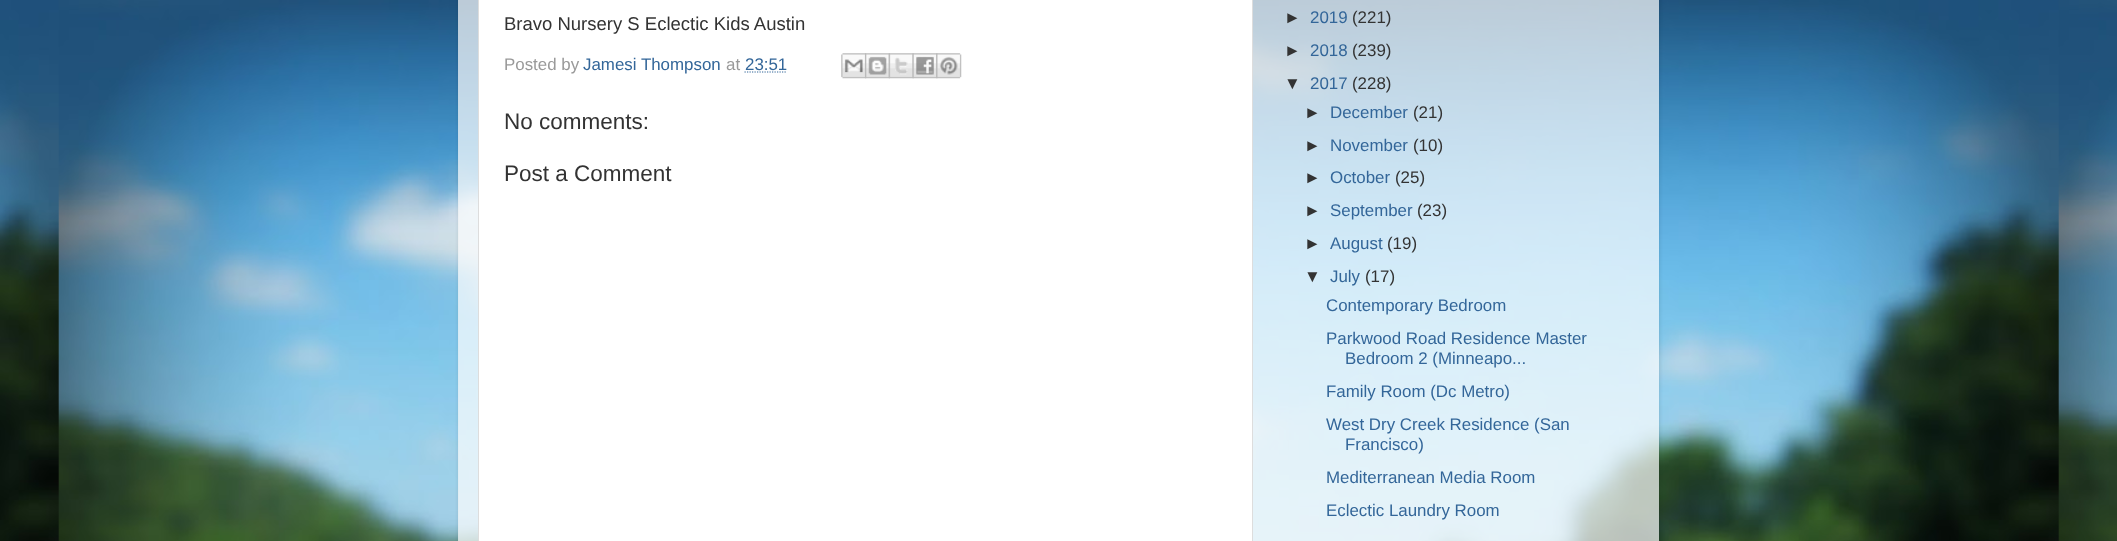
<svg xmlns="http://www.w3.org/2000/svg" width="2117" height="541">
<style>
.a{font:18.5px Liberation Sans;fill:#333}
.b{font:16.9px Liberation Sans;fill:#999}
.c{font:16.9px Liberation Sans;fill:#369}
.d{font:22.5px Liberation Sans;fill:#333}
.e{font:16.9px Liberation Sans;fill:#333}
</style>
<defs>
<clipPath id="clip1"><path d="M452 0h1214v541h-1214zm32-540h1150c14 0 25 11 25 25v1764h-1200v-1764c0-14 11-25 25-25z" clip-rule="evenodd"/></clipPath>
</defs>
<rect width="100%" height="100%" fill="#fff"/>
<image href="1.png" x="0" y="0" width="2117" height="541"/>
<g clip-path="url(#clip1)">
<rect fill="#00000026" filter="blur(2px)" x="459" y="-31" width="1200" height="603" rx="25"/>
</g>
<path fill="#ffffffb3" d="M458 0h1201v541H458z"/>
<path fill="#fff" stroke="#ddd" d="M478.5 -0.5h774v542H478.5z"/>
<path fill="none" stroke="#369" stroke-width="1.2" stroke-dasharray="1.25 1.25" d="M744.5 72h42.5"/>
<image href="2.png" x="841" y="53" width="26" height="26"/>
<image href="3.png" x="865" y="53" width="25" height="26"/>
<image href="4.png" x="888" y="53" width="26" height="26"/>
<image href="5.png" x="912" y="53" width="26" height="26"/>
<image href="6.png" x="936" y="53" width="26" height="26"/>
<text class="a" x="504" y="30">Bravo Nursery S Eclectic Kids Austin</text>
<text class="b" x="504" y="70">Posted by</text>
<text class="c" x="583" y="70">Jamesi Thompson</text>
<text class="b" x="726" y="70">at</text>
<text class="c" x="745" y="70">23:51</text>
<text class="d" x="504" y="129">No comments:</text>
<text class="d" x="504" y="181">Post a Comment</text>
<text class="e" x="1284" y="23">►</text>
<text class="c" x="1310" y="23">2019</text>
<text class="e" x="1352" y="23">(221)</text>
<text class="e" x="1284" y="56">►</text>
<text class="c" x="1310" y="56">2018</text>
<text class="e" x="1352" y="56">(239)</text>
<text class="e" x="1284" y="89">▼</text>
<text class="c" x="1310" y="89">2017</text>
<text class="e" x="1352" y="89">(228)</text>
<text class="e" x="1304" y="118">►</text>
<text class="c" x="1330" y="118">December</text>
<text class="e" x="1413" y="118">(21)</text>
<text class="e" x="1304" y="151">►</text>
<text class="c" x="1330" y="151">November</text>
<text class="e" x="1413" y="151">(10)</text>
<text class="e" x="1304" y="183">►</text>
<text class="c" x="1330" y="183">October</text>
<text class="e" x="1395" y="183">(25)</text>
<text class="e" x="1304" y="216">►</text>
<text class="c" x="1330" y="216">September</text>
<text class="e" x="1417" y="216">(23)</text>
<text class="e" x="1304" y="249">►</text>
<text class="c" x="1330" y="249">August</text>
<text class="e" x="1387" y="249">(19)</text>
<text class="e" x="1304" y="282">▼</text>
<text class="c" x="1330" y="282">July</text>
<text class="e" x="1365" y="282">(17)</text>
<text class="c" x="1326" y="311">Contemporary Bedroom</text>
<text class="c" x="1326" y="344">Parkwood Road Residence Master</text>
<text class="c" x="1345" y="364">Bedroom 2 (Minneapo...</text>
<text class="c" x="1326" y="397">Family Room (Dc Metro)</text>
<text class="c" x="1326" y="430">West Dry Creek Residence (San</text>
<text class="c" x="1345" y="450">Francisco)</text>
<text class="c" x="1326" y="483">Mediterranean Media Room</text>
<text class="c" x="1326" y="516">Eclectic Laundry Room</text>
</svg>
